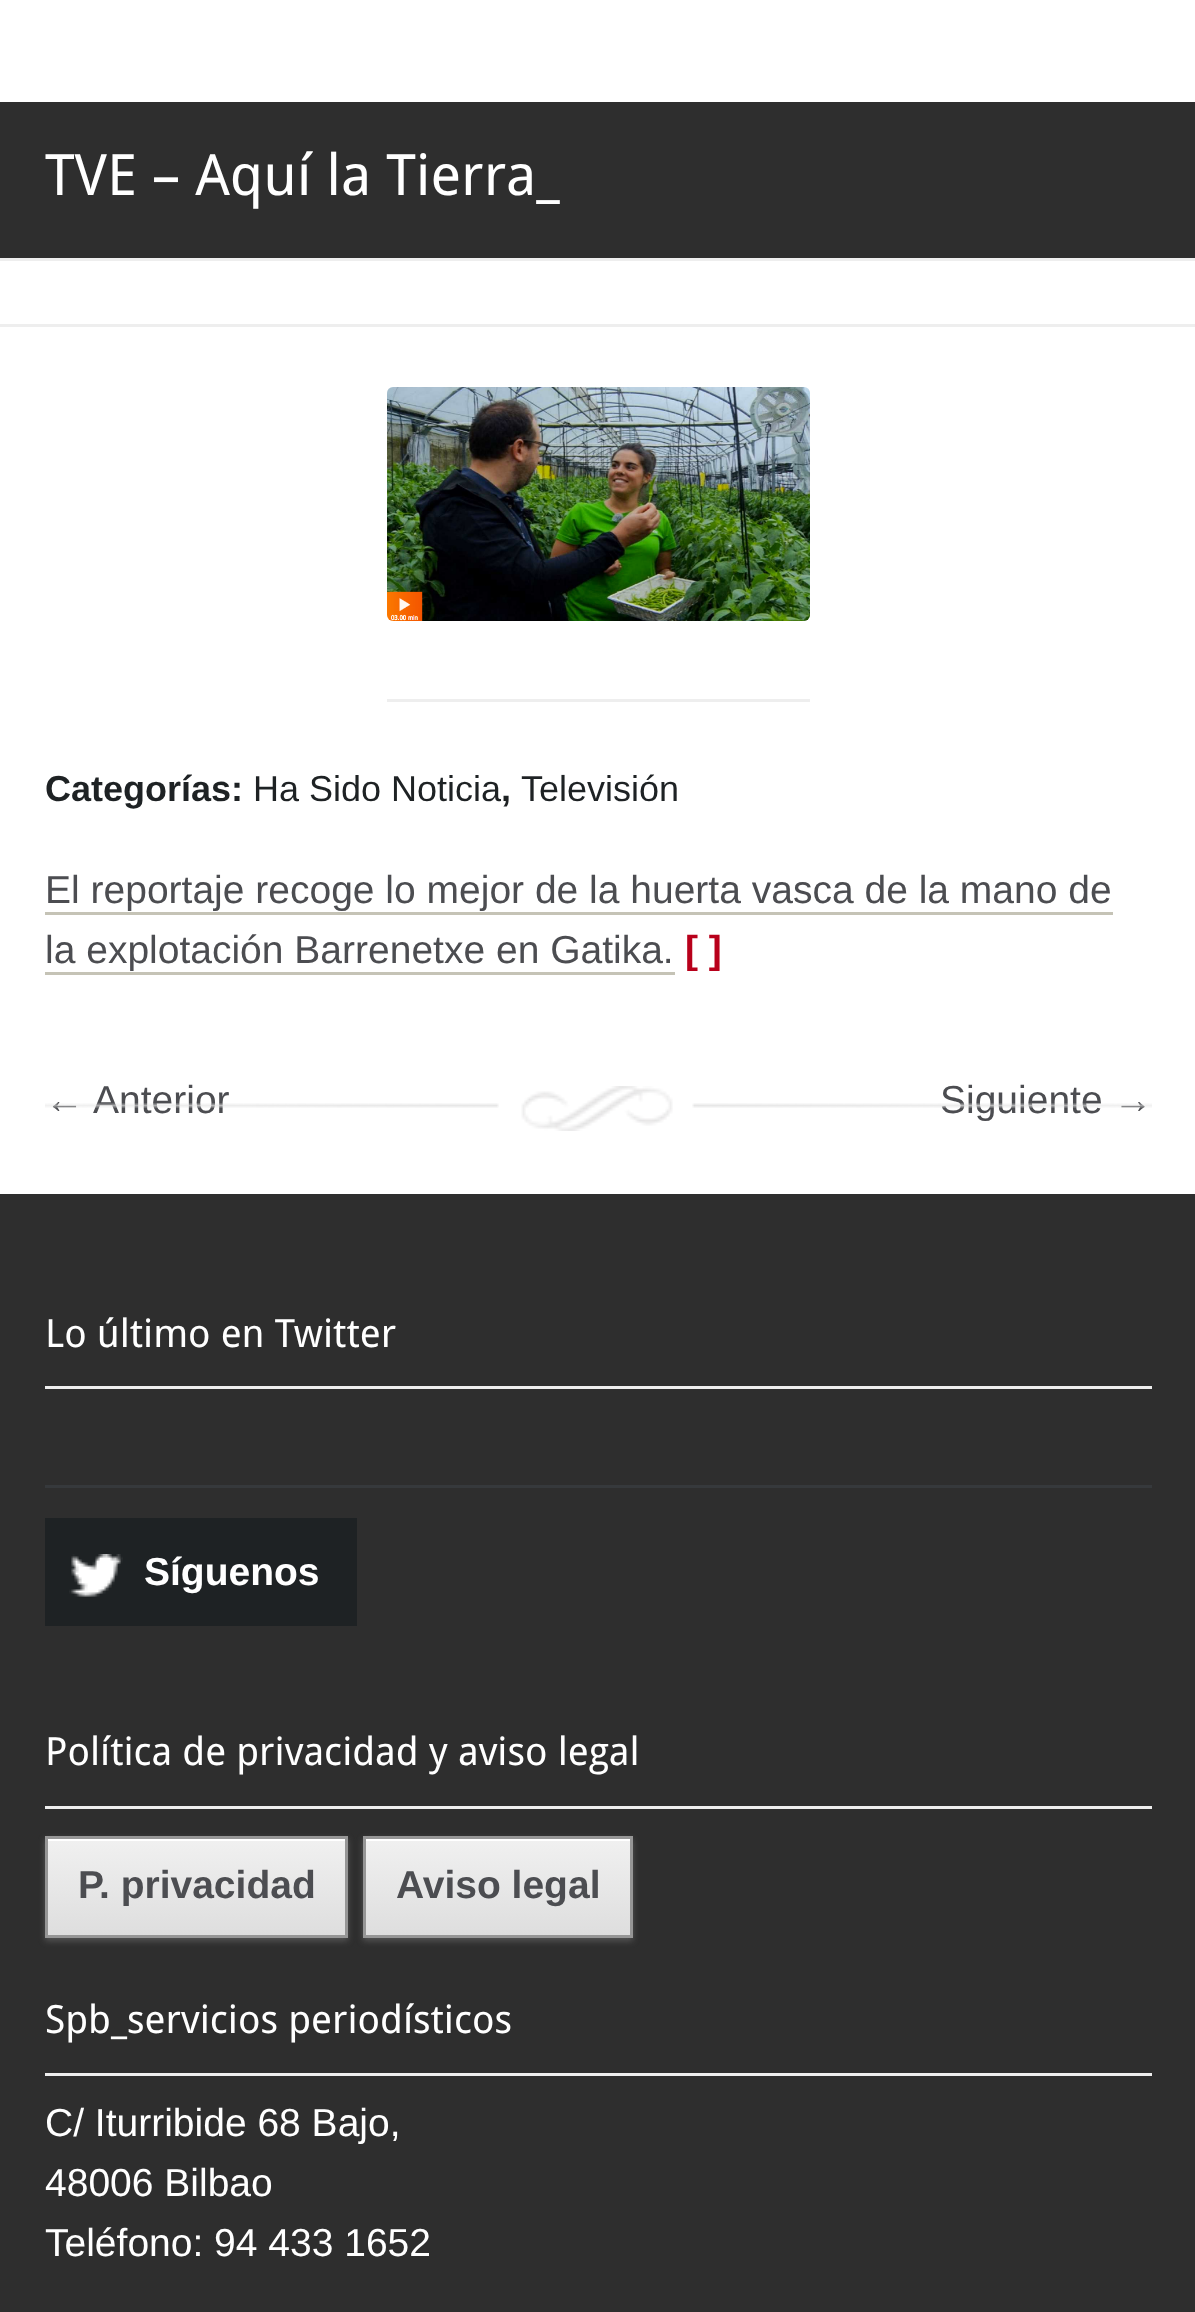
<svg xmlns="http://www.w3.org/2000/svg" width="1195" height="2312">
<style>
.a{font:57px Droid Sans;fill:#fff}
.b{font:bold 36px Liberation Sans;fill:#1e2224}
.c{font:36px Liberation Sans;fill:#1e2224}
.d{font:39px Liberation Sans;fill:#4c4d51}
.e{font:bold 39px Liberation Sans;fill:#b8001b}
.f{font:39px Droid Sans;fill:#fff}
.g{font:bold 39px Liberation Sans;fill:#fff}
.h{font:bold 39px Liberation Sans;fill:#4c4d51}
.i{font:39px Liberation Sans;fill:#fff}
</style>
<defs>
<linearGradient id="g1" gradientUnits="userSpaceOnUse" x1="197" y1="1839" x2="197" y2="1935"><stop offset="0.02" stop-color="#fff"/><stop offset="0.02" stop-color="#f0f0f0"/><stop offset="1" stop-color="#dedede"/></linearGradient>
<linearGradient id="g2" gradientUnits="userSpaceOnUse" x1="498" y1="1839" x2="498" y2="1935"><stop offset="0.02" stop-color="#fff"/><stop offset="0.02" stop-color="#f0f0f0"/><stop offset="1" stop-color="#dedede"/></linearGradient>
</defs>
<rect width="100%" height="100%" fill="#fff"/>
<path fill="#2e2e2e" d="M0 102h1195v156H0z"/>
<path fill="#eee" d="M0 258h1195v3H0z"/>
<path fill="#eee" d="M0 324h1195v3H0z"/>
<path fill="#eee" d="M387 699h423v3H387z"/>
<image href="1.png" x="387" y="387" width="423" height="234"/>
<path fill="#c5c3b6" d="M45 912h1068v3H45z"/>
<path fill="#c5c3b6" d="M45 972h630v3H45z"/>
<path fill="#2e2e2e" d="M0 1194h1195v1118H0z"/>
<path fill="#eee" d="M45 1386h1107v3H45z"/>
<path fill="#36393c" d="M45 1485h1107v3H45z"/>
<path fill="#1e2224" d="M45 1518h312v108H45z"/>
<image href="3.png" x="69" y="1554" width="54" height="43"/>
<path fill="#eee" d="M45 1806h1107v3H45z"/>
<path fill="#90909066" filter="blur(3px)" d="M45 1839h303v102H45z"/>
<path fill="url(#g1)" d="M48 1839h297v96H48z"/>
<path fill="none" stroke="#969696" stroke-width="3" d="M46.5 1837.5h300v99H46.5z"/>
<path fill="#90909066" filter="blur(3px)" d="M363 1839h270v102H363z"/>
<path fill="url(#g2)" d="M366 1839h264v96H366z"/>
<path fill="none" stroke="#969696" stroke-width="3" d="M364.5 1837.5h267v99H364.5z"/>
<path fill="#eee" d="M45 2073h1107v3H45z"/>
<text class="a" x="45" y="195">TVE – Aquí la Tierra_</text>
<text class="b" x="45" y="801">Categorías:</text>
<text class="c" x="253" y="801">Ha Sido Noticia</text>
<text class="b" x="501" y="801">,</text>
<text class="c" x="521" y="801">Televisión</text>
<text class="d" x="45" y="903">El reportaje recoge lo mejor de la huerta vasca de la mano de</text>
<text class="d" x="45" y="963">la explotación Barrenetxe en Gatika.</text>
<text class="e" x="685" y="963">[ ]</text>
<text class="d" x="45" y="1113">←</text>
<text class="d" x="93" y="1113">Anterior</text>
<text class="d" x="940" y="1113">Siguiente →</text>
<image href="2.png" x="45" y="1086" width="1107" height="45"/>
<text class="f" x="45" y="1347">Lo último en Twitter</text>
<text class="g" x="144" y="1585">Síguenos</text>
<text class="f" x="45" y="1765">Política de privacidad y aviso legal</text>
<text class="h" x="78" y="1898">P. privacidad</text>
<text class="h" x="396" y="1898">Aviso legal</text>
<text class="f" x="45" y="2033">Spb_servicios periodísticos</text>
<text class="i" x="45" y="2136">C/ Iturribide 68 Bajo,</text>
<text class="i" x="45" y="2196">48006 Bilbao</text>
<text class="i" x="45" y="2256">Teléfono: 94 433 1652</text>
</svg>
